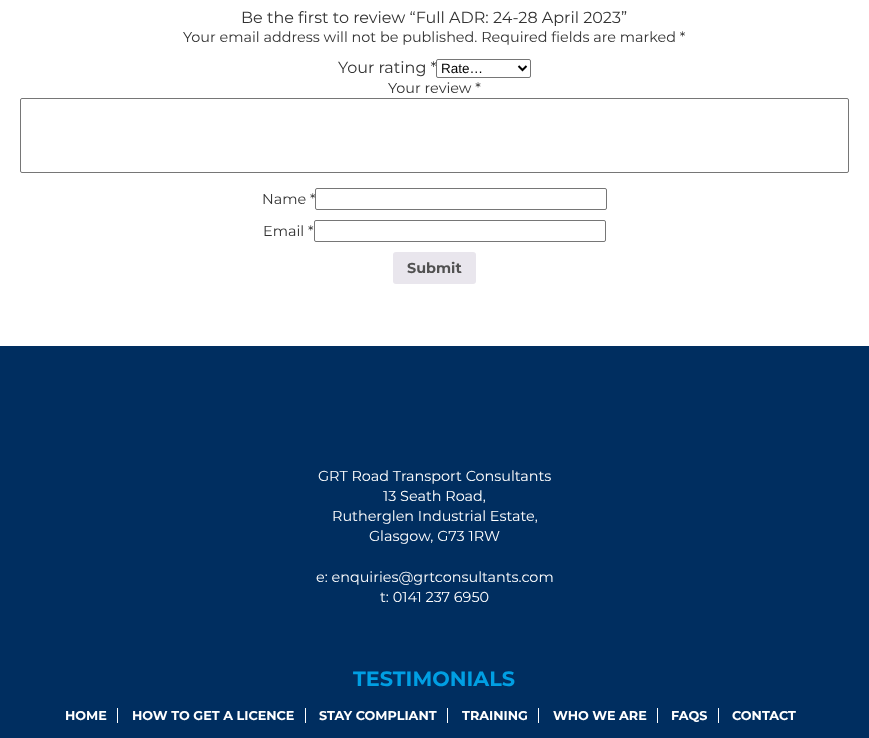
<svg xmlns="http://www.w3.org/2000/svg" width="869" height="738">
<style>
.a{font:16px Montserrat;fill:#333}
.b{font:14.4px Montserrat;fill:#333}
.c{font:13.5px Liberation Sans;fill:#000}
.d{font:bold 14.4px Montserrat;fill:#515151}
.e{font:14.4px Montserrat;fill:#fff}
.f{font:bold 20.75px Montserrat;fill:#009fe3}
.g{font:bold 12.75px Montserrat;fill:#fff}
</style>
<rect width="100%" height="100%" fill="#fff"/>
<rect fill="none" stroke="#767676" x="436.5" y="59.5" width="94" height="18" rx="1.5"/>
<path fill="none" stroke="#000" stroke-width="2" d="M518.5 66l4 4l4-4"/>
<rect fill="none" stroke="#767676" x="20.5" y="98.5" width="828" height="74" rx="1.5"/>
<rect fill="none" stroke="#767676" x="315.5" y="188.5" width="291" height="21" rx="1.5"/>
<rect fill="none" stroke="#767676" x="314.5" y="220.5" width="291" height="21" rx="1.5"/>
<rect fill="#e9e6ed" x="393" y="252" width="83" height="32" rx="3"/>
<path fill="#002e60" d="M0 346h869v392H0z"/>
<path fill="#fff" d="M117 708h1v15H117z"/>
<path fill="#fff" d="M305 708h1v15H305z"/>
<path fill="#fff" d="M447 708h1v15H447z"/>
<path fill="#fff" d="M538 708h1v15H538z"/>
<path fill="#fff" d="M657 708h1v15H657z"/>
<path fill="#fff" d="M718 708h1v15H718z"/>
<text class="a" x="241" y="23">Be the first to review “Full ADR: 24-28 April 2023”</text>
<text class="b" x="183" y="42">Your email address will not be published. Required fields are marked *</text>
<text class="a" x="338" y="73">Your rating *</text>
<text class="c" x="441" y="73">Rate…</text>
<text class="b" x="388" y="93">Your review *</text>
<text class="b" x="262" y="204">Name *</text>
<text class="b" x="263" y="236">Email *</text>
<text class="d" x="407" y="273">Submit</text>
<text class="e" x="318" y="481">GRT Road Transport Consultants</text>
<text class="e" x="383" y="501">13 Seath Road,</text>
<text class="e" x="332" y="521">Rutherglen Industrial Estate,</text>
<text class="e" x="369" y="541">Glasgow, G73 1RW</text>
<text class="e" x="316" y="582">e: enquiries@grtconsultants.com</text>
<text class="e" x="380" y="602">t: 0141 237 6950</text>
<text class="f" x="353" y="686">TESTIMONIALS</text>
<text class="g" x="65" y="720">HOME</text>
<text class="g" x="132" y="720">HOW TO GET A LICENCE</text>
<text class="g" x="319" y="720">STAY COMPLIANT</text>
<text class="g" x="462" y="720">TRAINING</text>
<text class="g" x="553" y="720">WHO WE ARE</text>
<text class="g" x="671" y="720">FAQS</text>
<text class="g" x="732" y="720">CONTACT</text>
</svg>
